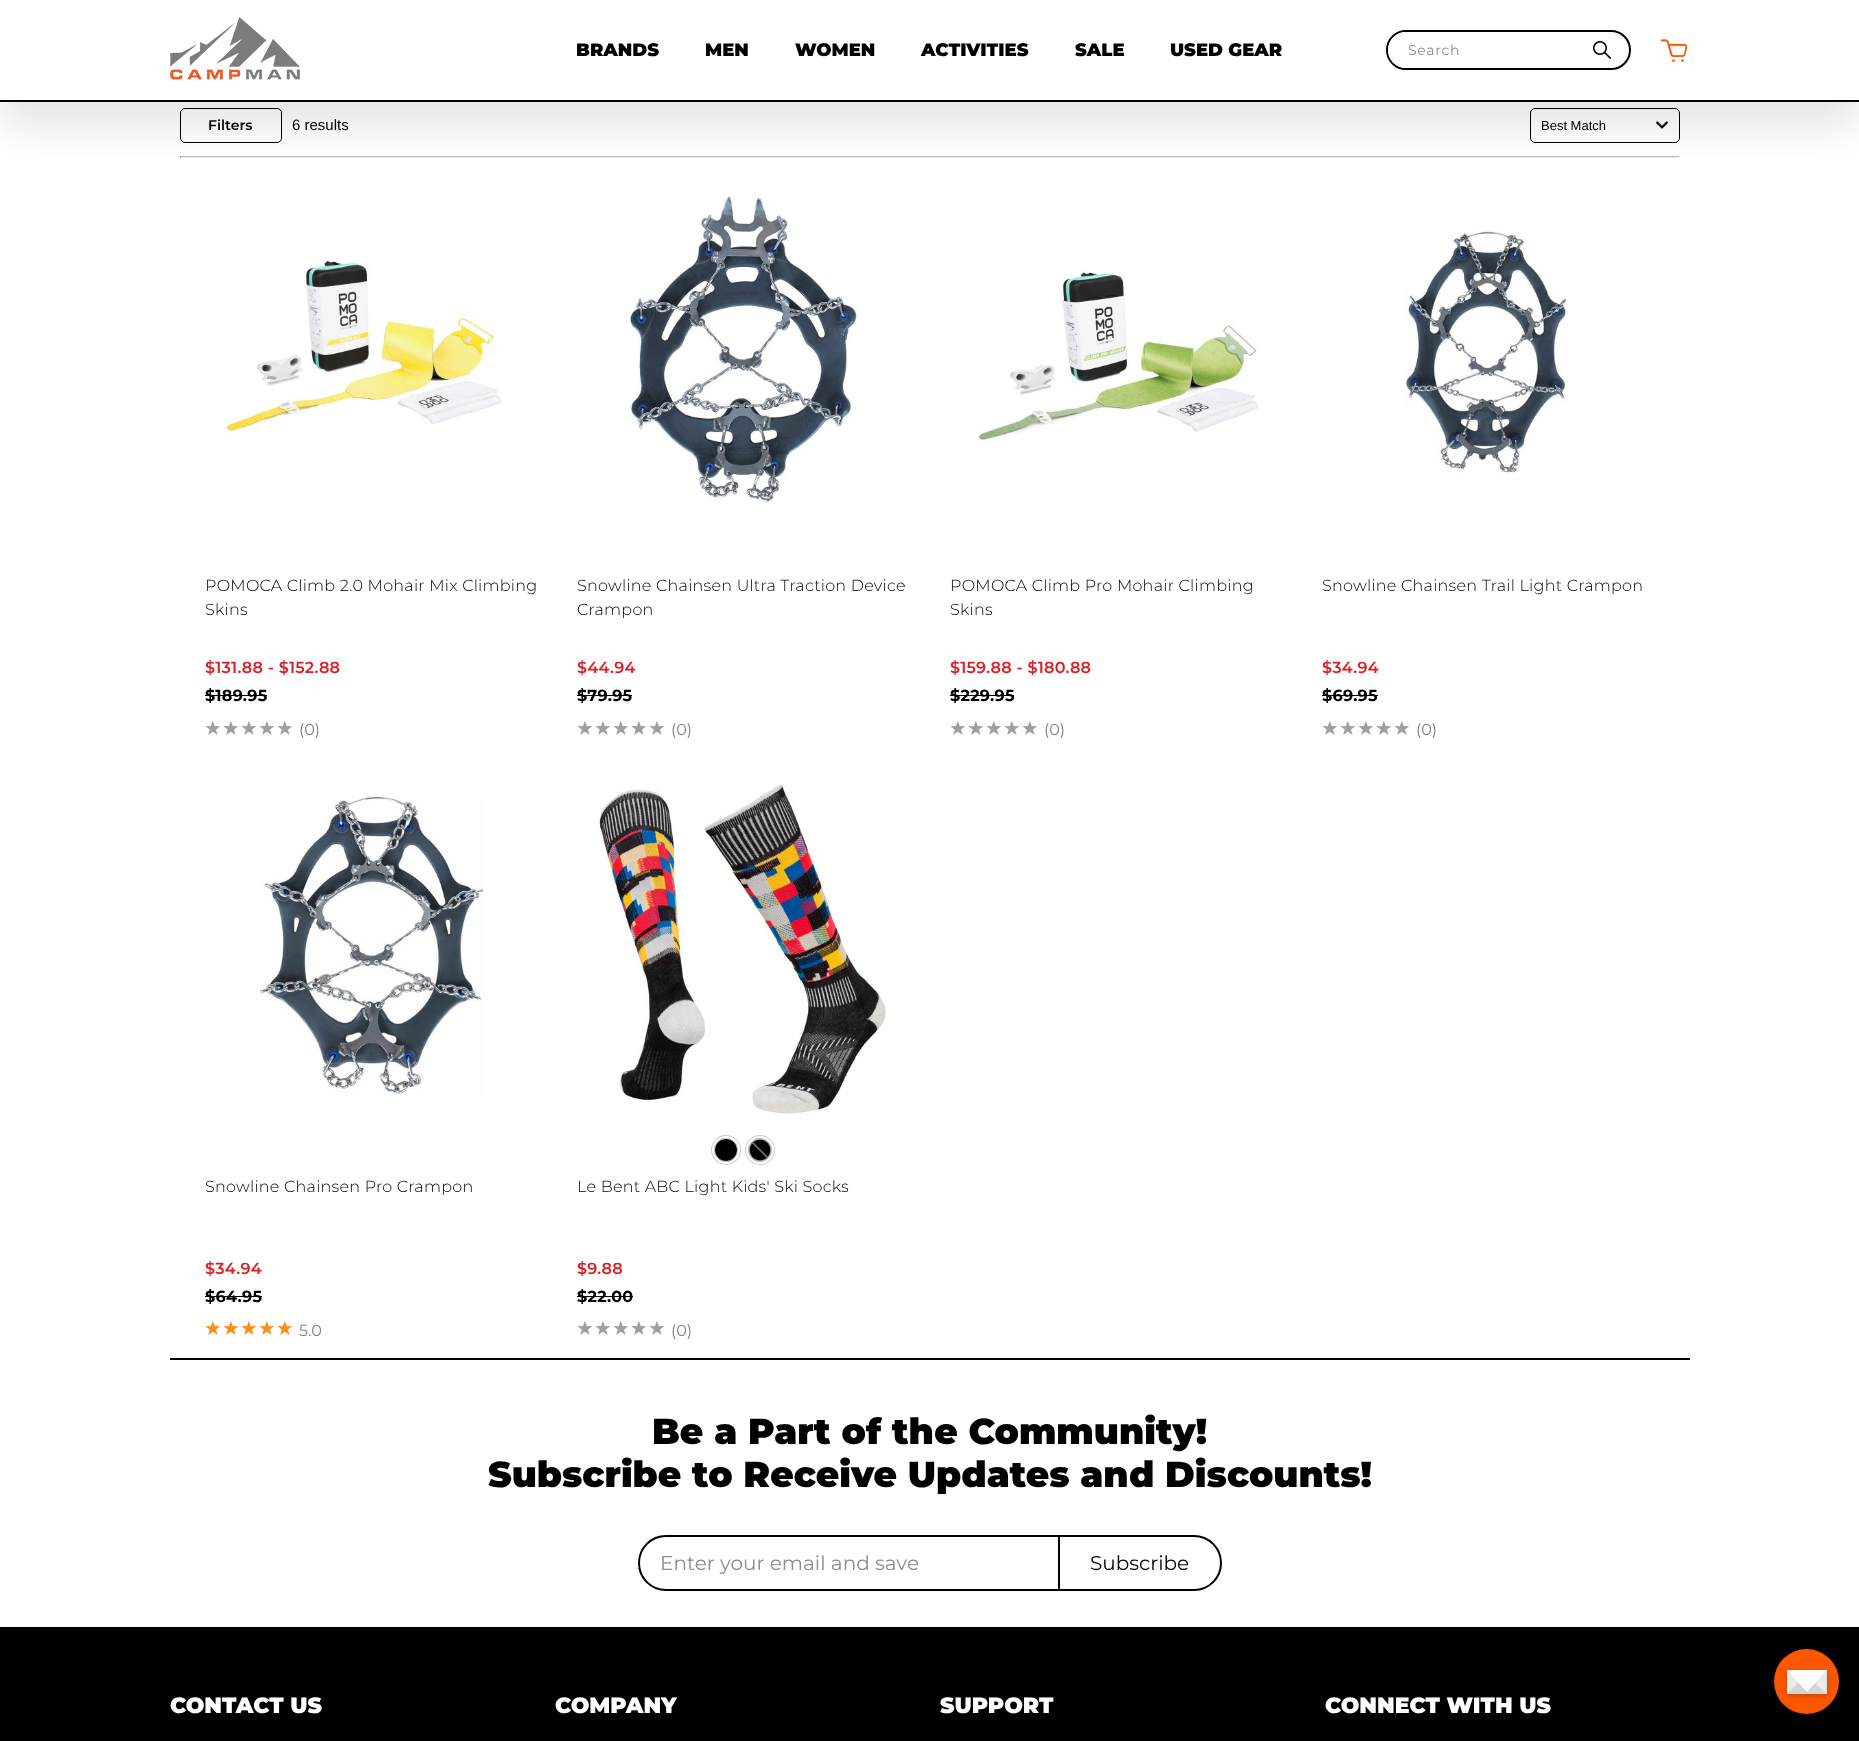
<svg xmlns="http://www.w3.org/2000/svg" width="1859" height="1741">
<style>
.a{font:900 18px Montserrat;fill:#000}
.b{font:14px Montserrat;letter-spacing:0.75px;fill:#8b8c8f}
.c{font:600 14px Montserrat;fill:#000}
.d{font:15px Liberation Sans;fill:#000}
.e{font:13px Liberation Sans;fill:#000}
.f{font:300 16px Montserrat;letter-spacing:0.25px;fill:#000}
.g{font:600 16px Montserrat;letter-spacing:0.25px;fill:#dc1f26}
.h{font:bold 16px Montserrat;letter-spacing:0.25px;fill:#000}
.i{font:16px Montserrat;fill:#808080}
.j{font:900 36px Montserrat;fill:#000}
.k{font:20px Montserrat;fill:#8b8c8f}
.l{font:20px Montserrat;fill:#000}
.m{font:900 22px Montserrat;fill:#fff}
</style>
<rect width="100%" height="100%" fill="#fff"/>
<rect fill="none" stroke="#000" x="180.5" y="108.5" width="101" height="34" rx="4.5"/>
<rect fill="none" stroke="#000" x="1530.5" y="108.5" width="149" height="34" rx="4.5"/>
<image href="4.png" x="1656" y="121" width="12" height="8"/>
<path fill="#bbb" d="M180 156h1500v1H180z"/>
<path fill="#eee" d="M1679 156h1v2H1679z"/>
<path fill="#eee" d="M180 157h1500v1H180z"/>
<path fill="#9f9f9f" d="M180 156h1v2H180z"/>
<path fill="#0000001a" filter="blur(20px)" d="M0 25h1859v102H0z"/>
<path fill="#fff" d="M0 0h1859v100H0z"/>
<path fill="#000" d="M0 100h1859v2H0z"/>
<image href="1.png" x="170" y="17" width="130" height="63"/>
<rect fill="none" stroke="#000" stroke-width="2" x="1387" y="31" width="243" height="38" rx="19"/>
<path fill="#fff" d="M1406 32h177v36h-177c-10 0-18-8-18-18c0-10 8-18 18-18z"/>
<image href="2.png" x="1593" y="41" width="18" height="18"/>
<image href="3.png" x="1660" y="39" width="28" height="23"/>
<image href="5.png" x="226" y="260" width="276" height="174"/>
<path fill="#000" d="M205 695h62v1H205z"/>
<image href="6.png" x="205" y="721" width="15" height="14"/>
<image href="6.png" x="223" y="721" width="15" height="14"/>
<image href="6.png" x="241" y="721" width="15" height="14"/>
<image href="6.png" x="259" y="721" width="15" height="14"/>
<image href="6.png" x="277" y="721" width="15" height="14"/>
<image href="7.png" x="627" y="194" width="231" height="310"/>
<path fill="#000" d="M577 695h55v1H577z"/>
<image href="6.png" x="577" y="721" width="15" height="14"/>
<image href="6.png" x="595" y="721" width="15" height="14"/>
<image href="6.png" x="613" y="721" width="15" height="14"/>
<image href="6.png" x="631" y="721" width="15" height="14"/>
<image href="6.png" x="649" y="721" width="15" height="14"/>
<image href="8.png" x="978" y="271" width="281" height="170"/>
<path fill="#000" d="M950 695h64v1H950z"/>
<image href="6.png" x="950" y="721" width="15" height="14"/>
<image href="6.png" x="968" y="721" width="15" height="14"/>
<image href="6.png" x="986" y="721" width="15" height="14"/>
<image href="6.png" x="1004" y="721" width="15" height="14"/>
<image href="6.png" x="1022" y="721" width="15" height="14"/>
<image href="9.png" x="1403" y="227" width="166" height="247"/>
<path fill="#000" d="M1322 695h56v1H1322z"/>
<image href="6.png" x="1322" y="721" width="15" height="14"/>
<image href="6.png" x="1340" y="721" width="15" height="14"/>
<image href="6.png" x="1358" y="721" width="15" height="14"/>
<image href="6.png" x="1376" y="721" width="15" height="14"/>
<image href="6.png" x="1394" y="721" width="15" height="14"/>
<image href="10.png" x="259" y="795" width="225" height="301"/>
<path fill="#000" d="M205 1296h57v1H205z"/>
<image href="11.png" x="205" y="1321" width="15" height="14"/>
<image href="11.png" x="223" y="1321" width="15" height="14"/>
<image href="11.png" x="241" y="1321" width="15" height="14"/>
<image href="11.png" x="259" y="1321" width="15" height="14"/>
<image href="11.png" x="277" y="1321" width="15" height="14"/>
<image href="12.png" x="599" y="784" width="287" height="330"/>
<circle fill="none" stroke="#ccc" stroke-width="3" cx="726" cy="1150" r="13.5"/>
<circle fill="none" stroke="#fff" stroke-width="2" cx="726" cy="1150" r="13"/>
<circle fill="#000" stroke="#ccc" cx="726" cy="1150" r="11.5"/>
<circle fill="none" stroke="#ccc" stroke-width="3" cx="760" cy="1150" r="13.5"/>
<circle fill="none" stroke="#fff" stroke-width="2" cx="760" cy="1150" r="13"/>
<circle fill="#000" stroke="#ccc" cx="760" cy="1150" r="11.5"/>
<image href="13.png" x="748" y="1138" width="24" height="24"/>
<path fill="#000" d="M577 1296h56v1H577z"/>
<image href="6.png" x="577" y="1321" width="15" height="14"/>
<image href="6.png" x="595" y="1321" width="15" height="14"/>
<image href="6.png" x="613" y="1321" width="15" height="14"/>
<image href="6.png" x="631" y="1321" width="15" height="14"/>
<image href="6.png" x="649" y="1321" width="15" height="14"/>
<path fill="#000" d="M0 1627h1859v114H0z"/>
<path fill="#000" d="M170 1358h1520v2H170z"/>
<path fill="none" stroke="#000" stroke-width="2" d="M666 1536h393v54h-393c-15 0-27-12-27-27c0-15 12-27 27-27z"/>
<path fill="#fff" stroke="#000" stroke-width="2" d="M1059 1536h135c15 0 27 12 27 27c0 15-12 27-27 27h-135z"/>
<circle fill="#ff5701" cx="1806.5" cy="1681.5" r="32.5"/>
<path fill="#00000033" filter="blur(2.5px)" d="M1787 1672h40v24H1787z"/>
<path fill="#ddd" d="M1787 1670h40v24H1787z"/>
<path fill="#d4d4d4" d="M1827 1694h-40l20-22z"/>
<path fill="#eaeaea" d="M1787 1694v-24l12 12zm39-24v24l-12-12z"/>
<path fill="#fff" d="M1787 1670h40l-20 22z"/>
<text class="a" x="576" y="56">BRANDS</text>
<text class="a" x="705" y="56">MEN</text>
<text class="a" x="795" y="56">WOMEN</text>
<text class="a" x="921" y="56">ACTIVITIES</text>
<text class="a" x="1075" y="56">SALE</text>
<text class="a" x="1170" y="56">USED GEAR</text>
<text class="b" x="1408" y="55">Search</text>
<text class="c" x="208" y="130">Filters</text>
<text class="d" x="292" y="130">6 results</text>
<text class="e" x="1541" y="130">Best Match</text>
<text class="f" x="205" y="591">POMOCA Climb 2.0 Mohair Mix Climbing</text>
<text class="f" x="205" y="615">Skins</text>
<text class="g" x="205" y="673">$131.88 - $152.88</text>
<text class="h" x="205" y="701">$189.95</text>
<text class="i" x="299" y="735">(0)</text>
<text class="f" x="577" y="591">Snowline Chainsen Ultra Traction Device</text>
<text class="f" x="577" y="615">Crampon</text>
<text class="g" x="577" y="673">$44.94</text>
<text class="h" x="577" y="701">$79.95</text>
<text class="i" x="671" y="735">(0)</text>
<text class="f" x="950" y="591">POMOCA Climb Pro Mohair Climbing</text>
<text class="f" x="950" y="615">Skins</text>
<text class="g" x="950" y="673">$159.88 - $180.88</text>
<text class="h" x="950" y="701">$229.95</text>
<text class="i" x="1044" y="735">(0)</text>
<text class="f" x="1322" y="591">Snowline Chainsen Trail Light Crampon</text>
<text class="g" x="1322" y="673">$34.94</text>
<text class="h" x="1322" y="701">$69.95</text>
<text class="i" x="1416" y="735">(0)</text>
<text class="f" x="205" y="1192">Snowline Chainsen Pro Crampon</text>
<text class="g" x="205" y="1274">$34.94</text>
<text class="h" x="205" y="1302">$64.95</text>
<text class="i" x="299" y="1336">5.0</text>
<text class="f" x="577" y="1192">Le Bent ABC Light Kids' Ski Socks</text>
<text class="g" x="577" y="1274">$9.88</text>
<text class="h" x="577" y="1302">$22.00</text>
<text class="i" x="671" y="1336">(0)</text>
<text class="j" x="652" y="1444">Be a Part of the Community!</text>
<text class="j" x="488" y="1487">Subscribe to Receive Updates and Discounts!</text>
<text class="k" x="660" y="1570">Enter your email and save</text>
<text class="l" x="1090" y="1570">Subscribe</text>
<text class="m" x="170" y="1713">CONTACT US</text>
<text class="m" x="555" y="1713">COMPANY</text>
<text class="m" x="940" y="1713">SUPPORT</text>
<text class="m" x="1325" y="1713">CONNECT WITH US</text>
</svg>
